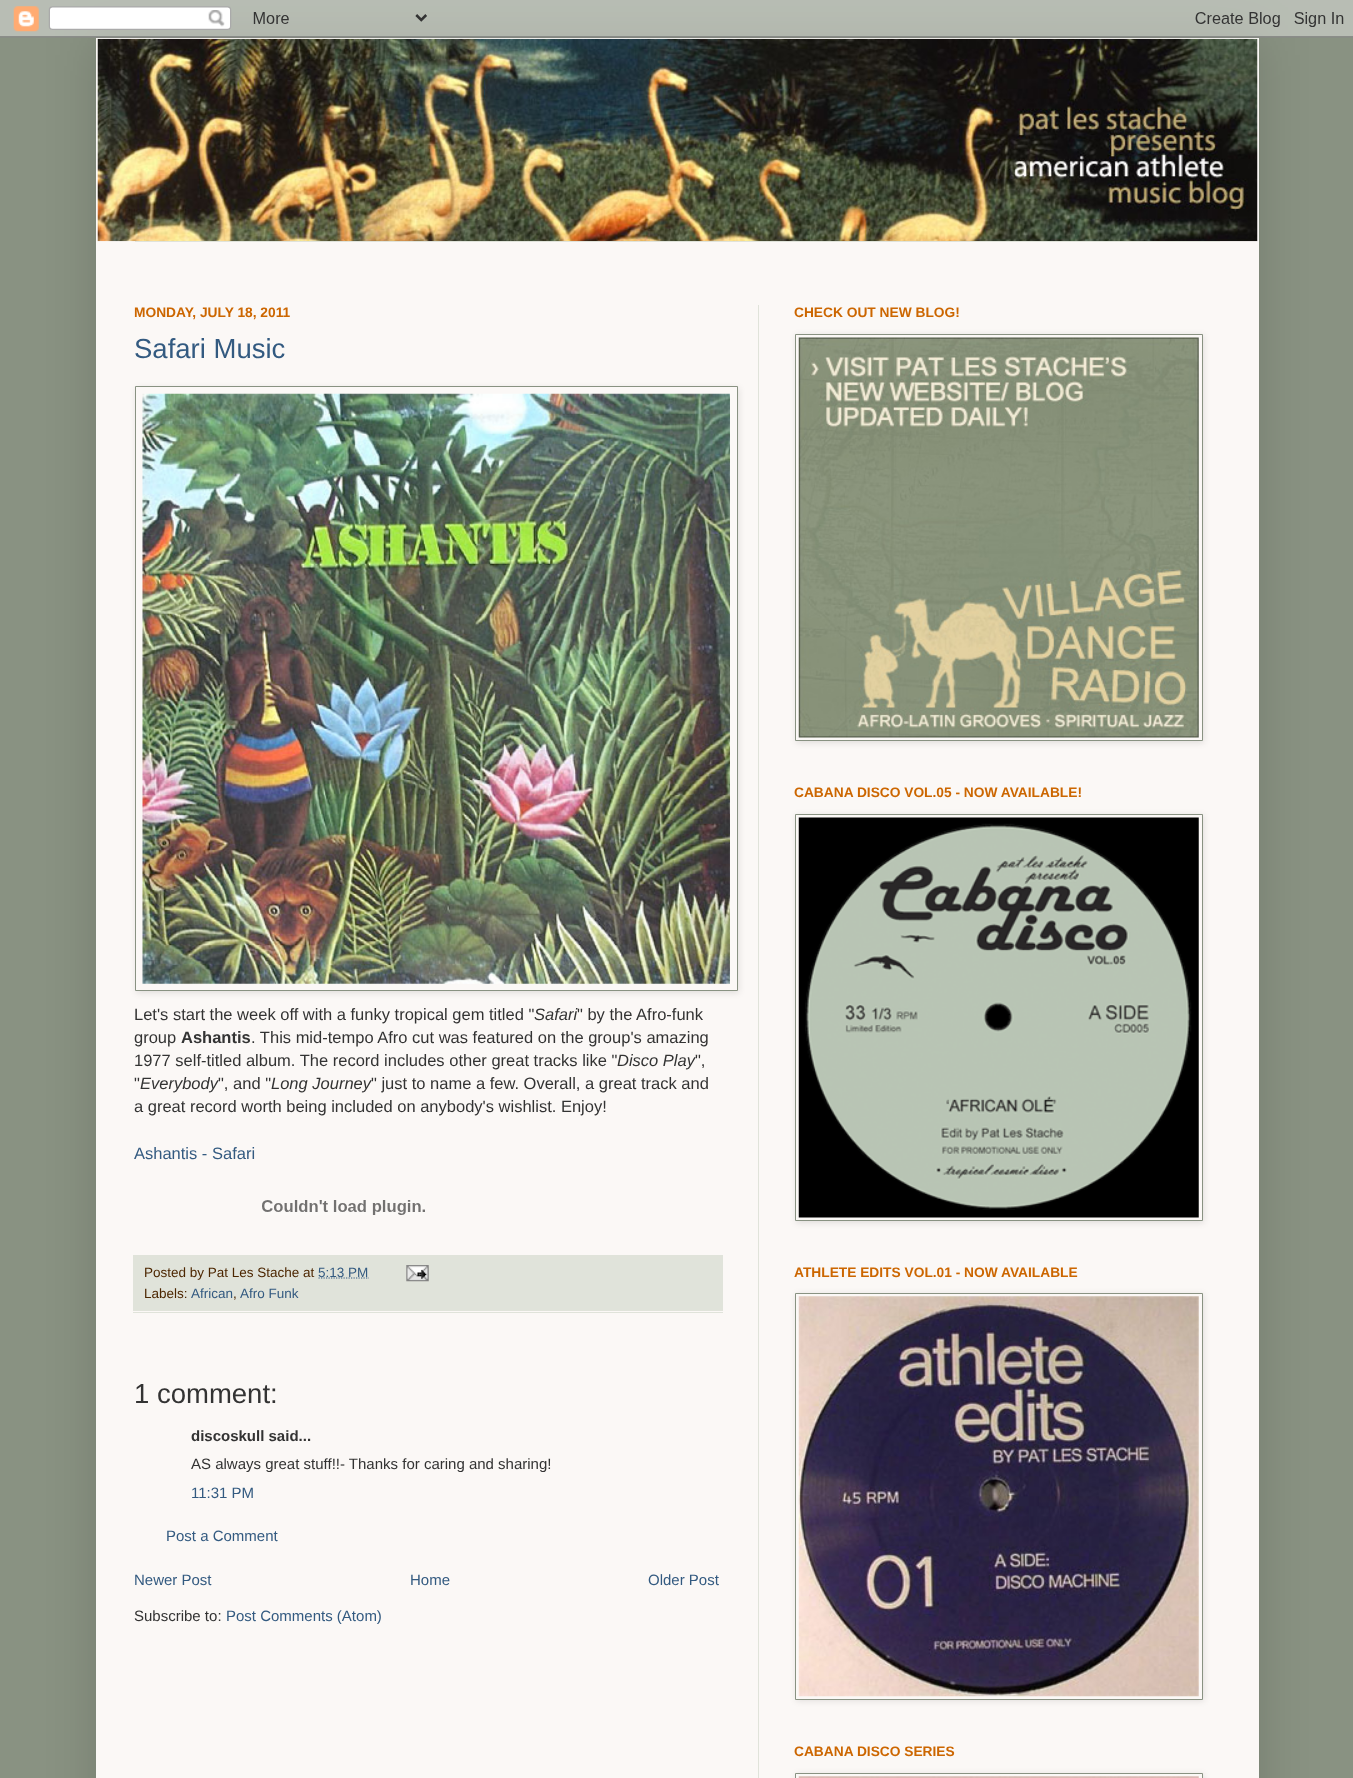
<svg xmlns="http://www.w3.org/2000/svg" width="1353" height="1778">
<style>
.a{font:bold 13.75px Liberation Sans;fill:#c60}
.b{font:27.5px Liberation Sans;fill:#335a80}
.c{font:16.5px Liberation Sans;fill:#333}
.d{font:italic 16.5px Liberation Sans;fill:#333}
.e{font:bold 16.5px Liberation Sans;fill:#333}
.f{font:16.5px Liberation Sans;fill:#335a80}
.g{font:13.5px Liberation Sans;fill:#4c2600}
.h{font:13.5px Liberation Sans;fill:#335a80}
.i{font:27.5px Liberation Sans;fill:#333}
.j{font:bold 15px Liberation Sans;fill:#333}
.k{font:15px Liberation Sans;fill:#333}
.l{font:15px Liberation Sans;fill:#335a80}
</style>
<rect width="100%" height="100%" fill="#899282"/>
<path fill="#00000026" filter="blur(25px)" d="M96 38h1163v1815H96z"/>
<image href="1.png" x="0" y="0" width="1353" height="38"/>
<path fill="#fbf8f6" d="M96 38h1163v1740H96z"/>
<image href="2.png" x="97" y="38" width="1161" height="204"/>
<path fill="#e0e3da" d="M135 241h1085v1H135z"/>
<path fill="#e0e3da" d="M758 305h1v1473H758z"/>
<path fill="#0000001a" filter="blur(3px)" d="M136 388h603v605H136z"/>
<path fill="#fbf8f6" stroke="#899282" d="M135.5 386.5h602v604H135.5z"/>
<image href="3.png" x="142" y="393" width="588" height="591"/>
<image href="4.png" x="262" y="1200" width="163" height="15"/>
<path fill="#e0e3da" d="M133 1255h590v58H133z"/>
<path fill="#fbf8f6" d="M133 1311h590v1H133z"/>
<path fill="none" stroke="#335a80" stroke-width="1.2" stroke-dasharray="1.25 1.25" d="M318.5 1278h50.5"/>
<image href="5.png" x="406" y="1265" width="23" height="17"/>
<path fill="#0000001a" filter="blur(3px)" d="M796 335h408v408H796z"/>
<path fill="#fbf8f6" stroke="#899282" d="M795.5 334.5h407v406H795.5z"/>
<image href="6.png" x="798" y="337" width="401" height="401"/>
<path fill="#0000001a" filter="blur(3px)" d="M796 815h408v408H796z"/>
<path fill="#fbf8f6" stroke="#899282" d="M795.5 814.5h407v406H795.5z"/>
<image href="7.png" x="798" y="817" width="401" height="401"/>
<path fill="#0000001a" filter="blur(3px)" d="M796 1294h408v407H796z"/>
<path fill="#fbf8f6" stroke="#899282" d="M795.5 1293.5h407v406H795.5z"/>
<image href="8.png" x="798" y="1296" width="401" height="401"/>
<path fill="#0000001a" filter="blur(3px)" d="M796 1774h408v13H796z"/>
<path fill="#fbf8f6" stroke="#899282" d="M795.5 1773.5h407v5H795.5z"/>
<image href="9.png" x="798" y="1776" width="401" height="2"/>
<text class="a" x="134" y="317">MONDAY, JULY 18, 2011</text>
<text class="b" x="134" y="358">Safari Music</text>
<text class="c" x="134" y="1020">Let's start the week off with a funky tropical gem titled "</text>
<text class="d" x="534" y="1020">Safari</text>
<text class="c" x="577" y="1020">" by the Afro-funk</text>
<text class="c" x="134" y="1043">group</text>
<text class="e" x="181" y="1043">Ashantis</text>
<text class="c" x="251" y="1043">. This mid-tempo Afro cut was featured on the group's amazing</text>
<text class="c" x="134" y="1066">1977 self-titled album. The record includes other great tracks like "</text>
<text class="d" x="617" y="1066">Disco Play</text>
<text class="c" x="695" y="1066">",</text>
<text class="c" x="134" y="1089">"</text>
<text class="d" x="140" y="1089">Everybody</text>
<text class="c" x="218" y="1089">", and "</text>
<text class="d" x="271" y="1089">Long Journey</text>
<text class="c" x="371" y="1089">" just to name a few. Overall, a great track and</text>
<text class="c" x="134" y="1112">a great record worth being included on anybody's wishlist. Enjoy!</text>
<text class="f" x="134" y="1159">Ashantis - Safari</text>
<text class="g" x="144" y="1277">Posted by Pat Les Stache at</text>
<text class="h" x="318" y="1277">5:13 PM</text>
<text class="g" x="144" y="1298">Labels:</text>
<text class="h" x="191" y="1298">African</text>
<text class="g" x="233" y="1298">,</text>
<text class="h" x="240" y="1298">Afro Funk</text>
<text class="i" x="134" y="1403">1 comment:</text>
<text class="j" x="191" y="1441">discoskull said...</text>
<text class="k" x="191" y="1469">AS always great stuff!!- Thanks for caring and sharing!</text>
<text class="l" x="191" y="1498">11:31 PM</text>
<text class="l" x="166" y="1541">Post a Comment</text>
<text class="l" x="134" y="1585">Newer Post</text>
<text class="l" x="410" y="1585">Home</text>
<text class="l" x="648" y="1585">Older Post</text>
<text class="k" x="134" y="1621">Subscribe to:</text>
<text class="l" x="226" y="1621">Post Comments (Atom)</text>
<text class="a" x="794" y="317">CHECK OUT NEW BLOG!</text>
<text class="a" x="794" y="797">CABANA DISCO VOL.05 - NOW AVAILABLE!</text>
<text class="a" x="794" y="1277">ATHLETE EDITS VOL.01 - NOW AVAILABLE</text>
<text class="a" x="794" y="1756">CABANA DISCO SERIES</text>
</svg>
